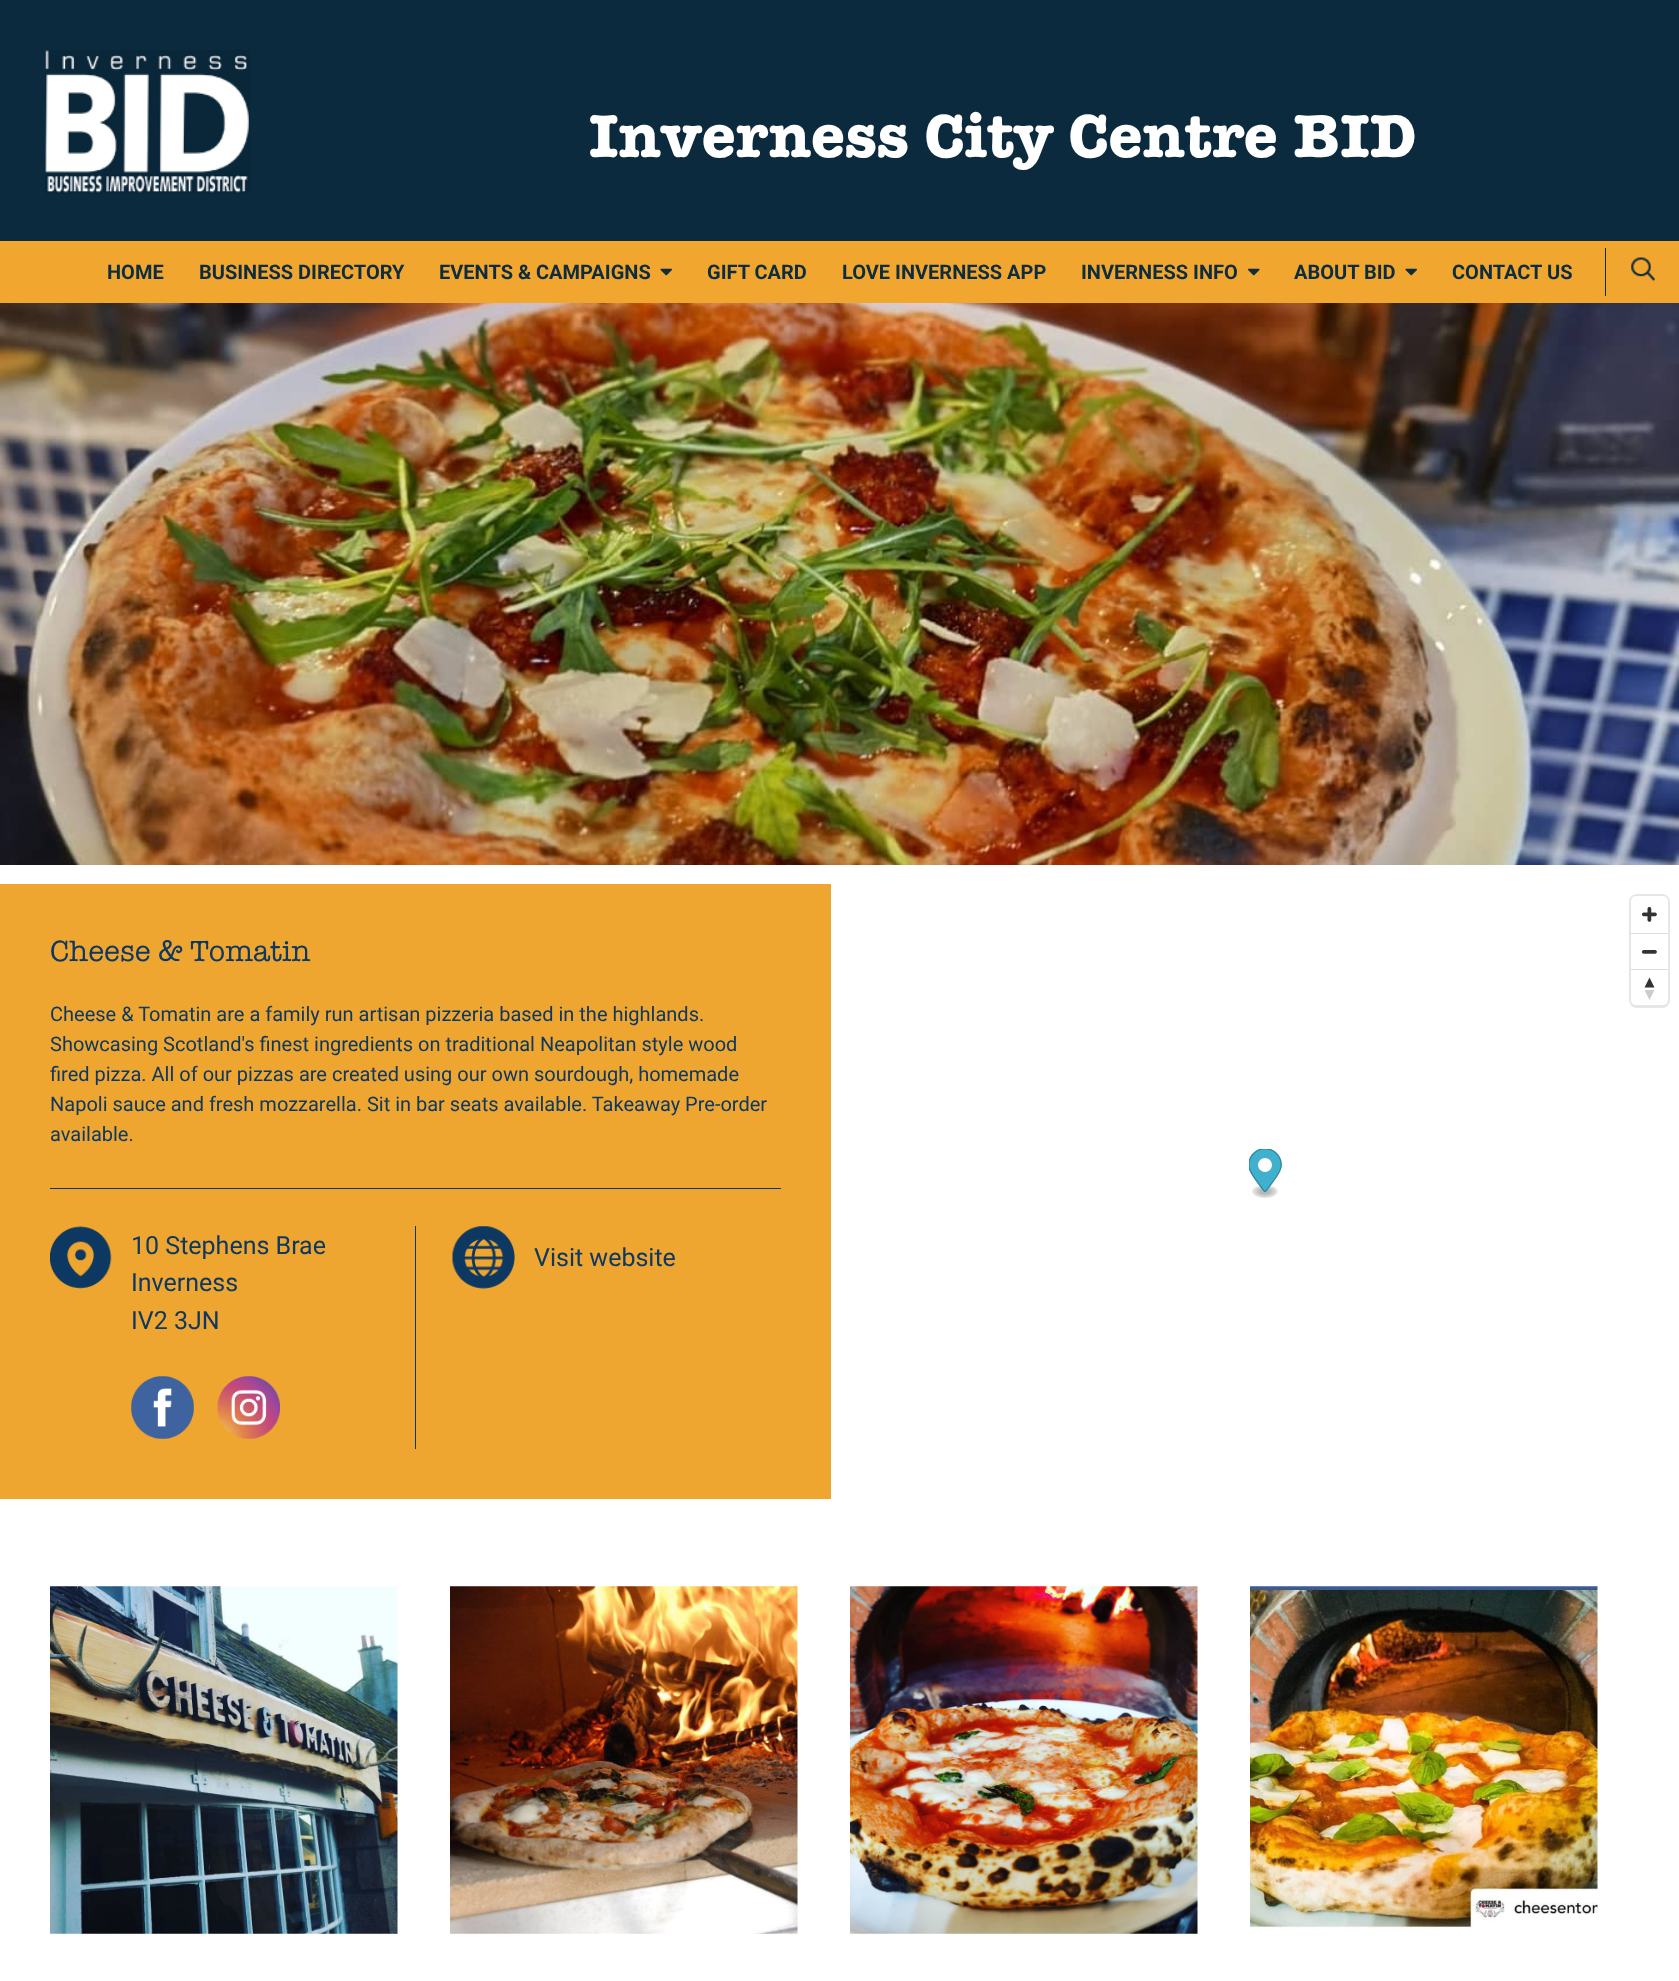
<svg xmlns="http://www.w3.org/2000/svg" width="1679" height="1981">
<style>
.a{font:bold 62.5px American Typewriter;fill:#fff}
.b{font:bold 20px Roboto;fill:#0e2c3f}
.c{font:30px American Typewriter;fill:#0d3861}
.d{font:20px Roboto;fill:#0d3861}
.e{font:25px Roboto;fill:#0d3861}
</style>
<rect width="100%" height="100%" fill="#fff"/>
<path fill="#0c2a3d" d="M0 0h1679v241H0z"/>
<image href="1.png" x="45" y="50" width="205" height="144"/>
<path fill="#f0a62f" d="M0 241h1679v62H0z"/>
<image href="2.png" x="660" y="268" width="12" height="8"/>
<image href="3.png" x="1248" y="268" width="12" height="8"/>
<image href="2.png" x="1405" y="268" width="12" height="8"/>
<path fill="#0e2c3f" d="M1605 248h1v48H1605z"/>
<image href="4.png" x="1631" y="257" width="24" height="25"/>
<image href="5.png" x="0" y="303" width="1679" height="562"/>
<path fill="#efa631" d="M0 884h831v615H0z"/>
<path fill="#0d3861" d="M50 1188h731v1H50z"/>
<path fill="#0d3861" d="M415 1226h1v223H415z"/>
<image href="6.png" x="50" y="1226" width="62" height="63"/>
<image href="7.png" x="131" y="1376" width="63" height="63"/>
<image href="8.png" x="217" y="1376" width="63" height="63"/>
<image href="9.png" x="452" y="1226" width="63" height="63"/>
<rect fill="none" stroke="#e6e6e6" stroke-width="3" x="1630.5" y="895.5" width="38" height="111" rx="6.5"/>
<rect fill="#fff" x="1631" y="896" width="37" height="109" rx="5"/>
<image href="10.png" x="1641" y="906" width="16" height="16"/>
<path fill="#ddd" d="M1631 933h37v1H1631z"/>
<image href="11.png" x="1641" y="950" width="16" height="4"/>
<path fill="#ddd" d="M1631 969h37v1H1631z"/>
<path fill="#333" d="M1644.5 987.5l5-10l5 10z"/>
<path fill="#ccc" d="M1644.5 990l5 10l5-10z"/>
<image href="12.png" x="1249" y="1149" width="33" height="49"/>
<image href="13.png" x="50" y="1586" width="348" height="348"/>
<image href="14.png" x="450" y="1586" width="348" height="348"/>
<image href="15.png" x="850" y="1586" width="348" height="348"/>
<image href="16.png" x="1250" y="1586" width="348" height="343"/>
<text class="a" x="589" y="157">Inverness City Centre BID</text>
<text class="b" x="107" y="279">HOME</text>
<text class="b" x="199" y="279">BUSINESS DIRECTORY</text>
<text class="b" x="439" y="279">EVENTS &amp; CAMPAIGNS</text>
<text class="b" x="707" y="279">GIFT CARD</text>
<text class="b" x="842" y="279">LOVE INVERNESS APP</text>
<text class="b" x="1081" y="279">INVERNESS INFO</text>
<text class="b" x="1294" y="279">ABOUT BID</text>
<text class="b" x="1452" y="279">CONTACT US</text>
<text class="c" x="50" y="961">Cheese &amp; Tomatin</text>
<text class="d" x="50" y="1021">Cheese &amp; Tomatin are a family run artisan pizzeria based in the highlands.</text>
<text class="d" x="50" y="1051">Showcasing Scotland's finest ingredients on traditional Neapolitan style wood</text>
<text class="d" x="50" y="1081">fired pizza. All of our pizzas are created using our own sourdough, homemade</text>
<text class="d" x="50" y="1111">Napoli sauce and fresh mozzarella. Sit in bar seats available. Takeaway Pre-order</text>
<text class="d" x="50" y="1141">available.</text>
<text class="e" x="131" y="1254">10 Stephens Brae</text>
<text class="e" x="131" y="1291">Inverness</text>
<text class="e" x="131" y="1329">IV2 3JN</text>
<text class="e" x="534" y="1266">Visit website</text>
</svg>
